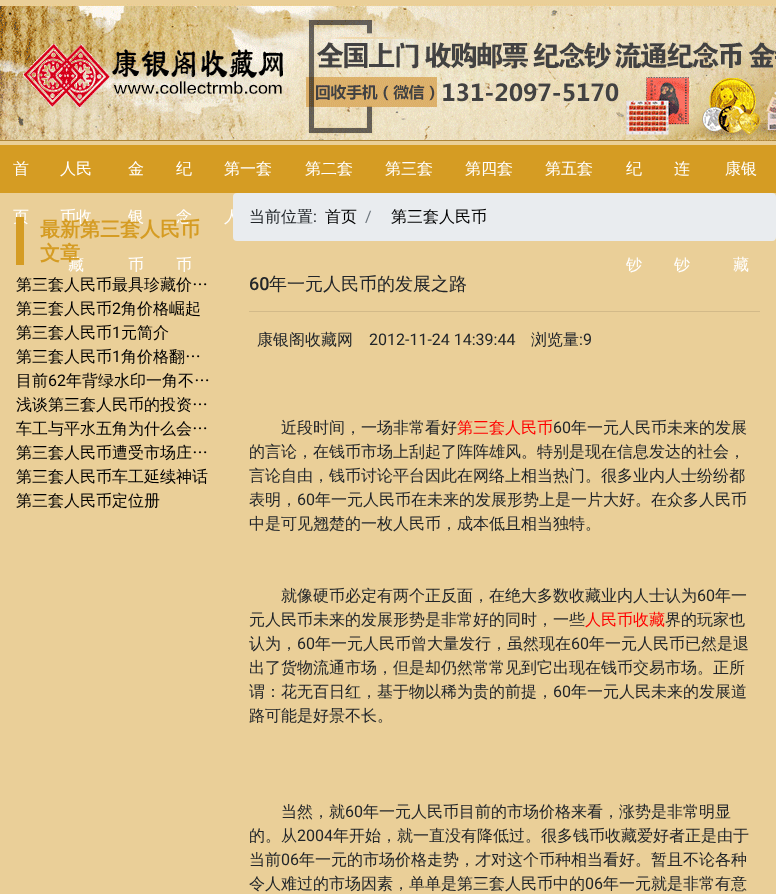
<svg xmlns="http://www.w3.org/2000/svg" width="776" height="894">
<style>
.a{font:500 16px WenQuanYi Zen Hei;fill:#fff}
.b{font:bold 20px WenQuanYi Zen Hei;fill:#d59c23}
.c{font:500 16px WenQuanYi Zen Hei;fill:#000}
.d{font:16px Roboto;fill:#000}
.e{font:500 16px WenQuanYi Zen Hei;fill:#212529}
.f{font:16px Roboto;fill:#212529}
.g{font:16px Roboto;fill:#6c757d}
.h{font:500 18px Roboto;fill:#212529}
.i{font:500 18px WenQuanYi Zen Hei;fill:#212529}
.j{font:500 16px WenQuanYi Zen Hei;fill:#f00}
</style>
<rect width="100%" height="100%" fill="#eacf98"/>
<image href="1.png" x="0" y="4" width="776" height="137"/>
<path fill="#d59c23" d="M0 145h776v48H0z"/>
<path fill="#d3ba89" d="M249 311h511v1H249z"/>
<text class="a" x="13" y="174">首</text>
<text class="a" x="13" y="222">页</text>
<text class="a" x="60" y="174">人民</text>
<text class="a" x="60" y="222">币收</text>
<text class="a" x="68" y="270">藏</text>
<text class="a" x="128" y="174">金</text>
<text class="a" x="128" y="222">银</text>
<text class="a" x="128" y="270">币</text>
<text class="a" x="176" y="174">纪</text>
<text class="a" x="176" y="222">念</text>
<text class="a" x="176" y="270">币</text>
<text class="a" x="224" y="174">第一套</text>
<text class="a" x="224" y="222">人</text>
<text class="a" x="305" y="174">第二套</text>
<text class="a" x="385" y="174">第三套</text>
<text class="a" x="465" y="174">第四套</text>
<text class="a" x="545" y="174">第五套</text>
<text class="a" x="626" y="174">纪</text>
<text class="a" x="626" y="270">钞</text>
<text class="a" x="674" y="174">连</text>
<text class="a" x="674" y="270">钞</text>
<text class="a" x="725" y="174">康银</text>
<text class="a" x="733" y="270">藏</text>
<path fill="#d59c23" d="M16 217h8v48H16z"/>
<text class="b" x="40" y="236">最新第三套人民币</text>
<text class="b" x="40" y="260">文章</text>
<text class="c" x="16" y="290">第三套人民币最具珍藏价…</text>
<text class="c" x="16" y="314">第三套人民币</text>
<text class="d" x="112" y="314">2</text>
<text class="c" x="121" y="314">角价格崛起</text>
<text class="c" x="16" y="338">第三套人民币</text>
<text class="d" x="112" y="338">1</text>
<text class="c" x="121" y="338">元简介</text>
<text class="c" x="16" y="362">第三套人民币</text>
<text class="d" x="112" y="362">1</text>
<text class="c" x="121" y="362">角价格翻…</text>
<text class="c" x="16" y="386">目前</text>
<text class="d" x="48" y="386">62</text>
<text class="c" x="66" y="386">年背绿水印一角不…</text>
<text class="c" x="16" y="410">浅谈第三套人民币的投资…</text>
<text class="c" x="16" y="434">车工与平水五角为什么会…</text>
<text class="c" x="16" y="458">第三套人民币遭受市场庄…</text>
<text class="c" x="16" y="482">第三套人民币车工延续神话</text>
<text class="c" x="16" y="506">第三套人民币定位册</text>
<rect fill="#e9ecef" x="233" y="193" width="543" height="48" rx="4"/>
<text class="e" x="249" y="222">当前位置</text>
<text class="f" x="313" y="222">:</text>
<text class="c" x="325" y="222">首页</text>
<text class="g" x="365" y="222">/</text>
<text class="c" x="391" y="222">第三套人民币</text>
<text class="h" x="249" y="290">60</text>
<text class="i" x="269" y="290">年一元人民币的发展之路</text>
<text class="e" x="257" y="345">康银阁收藏网</text>
<text class="f" x="369" y="345">2012-11-24 14:39:44</text>
<text class="e" x="531" y="345">浏览量</text>
<text class="f" x="579" y="345">:9</text>
<text class="e" x="281" y="433">近段时间，一场非常看好</text>
<text class="j" x="457" y="433">第三套人民币</text>
<text class="f" x="553" y="433">60</text>
<text class="e" x="571" y="433">年一元人民币未来的发展</text>
<text class="e" x="249" y="457">的言论，在钱币市场上刮起了阵阵雄风。特别是现在信息发达的社会，</text>
<text class="e" x="249" y="481">言论自由，钱币讨论平台因此在网络上相当热门。很多业内人士纷纷都</text>
<text class="e" x="249" y="505">表明，</text>
<text class="f" x="297" y="505">60</text>
<text class="e" x="315" y="505">年一元人民币在未来的发展形势上是一片大好。在众多人民币</text>
<text class="e" x="249" y="529">中是可见翘楚的一枚人民币，成本低且相当独特。</text>
<text class="e" x="281" y="601">就像硬币必定有两个正反面，在绝大多数收藏业内人士认为</text>
<text class="f" x="697" y="601">60</text>
<text class="e" x="715" y="601">年一</text>
<text class="e" x="249" y="625">元人民币未来的发展形势是非常好的同时，一些</text>
<text class="j" x="585" y="625">人民币收藏</text>
<text class="e" x="665" y="625">界的玩家也</text>
<text class="e" x="249" y="649">认为，</text>
<text class="f" x="297" y="649">60</text>
<text class="e" x="315" y="649">年一元人民币曾大量发行，虽然现在</text>
<text class="f" x="571" y="649">60</text>
<text class="e" x="589" y="649">年一元人民币已然是退</text>
<text class="e" x="249" y="673">出了货物流通市场，但是却仍然常常见到它出现在钱币交易市场。正所</text>
<text class="e" x="249" y="697">谓：花无百日红，基于物以稀为贵的前提，</text>
<text class="f" x="553" y="697">60</text>
<text class="e" x="571" y="697">年一元人民未来的发展道</text>
<text class="e" x="249" y="721">路可能是好景不长。</text>
<text class="e" x="281" y="817">当然，就</text>
<text class="f" x="345" y="817">60</text>
<text class="e" x="363" y="817">年一元人民币目前的市场价格来看，涨势是非常明显</text>
<text class="e" x="249" y="841">的。从</text>
<text class="f" x="297" y="841">2004</text>
<text class="e" x="333" y="841">年开始，就一直没有降低过。很多钱币收藏爱好者正是由于</text>
<text class="e" x="249" y="865">当前</text>
<text class="f" x="281" y="865">06</text>
<text class="e" x="299" y="865">年一元的市场价格走势，才对这个币种相当看好。暂且不论各种</text>
<text class="e" x="249" y="889">令人难过的市场因素，单单是第三套人民币中的</text>
<text class="f" x="585" y="889">06</text>
<text class="e" x="603" y="889">年一元就是非常有意</text>
</svg>
